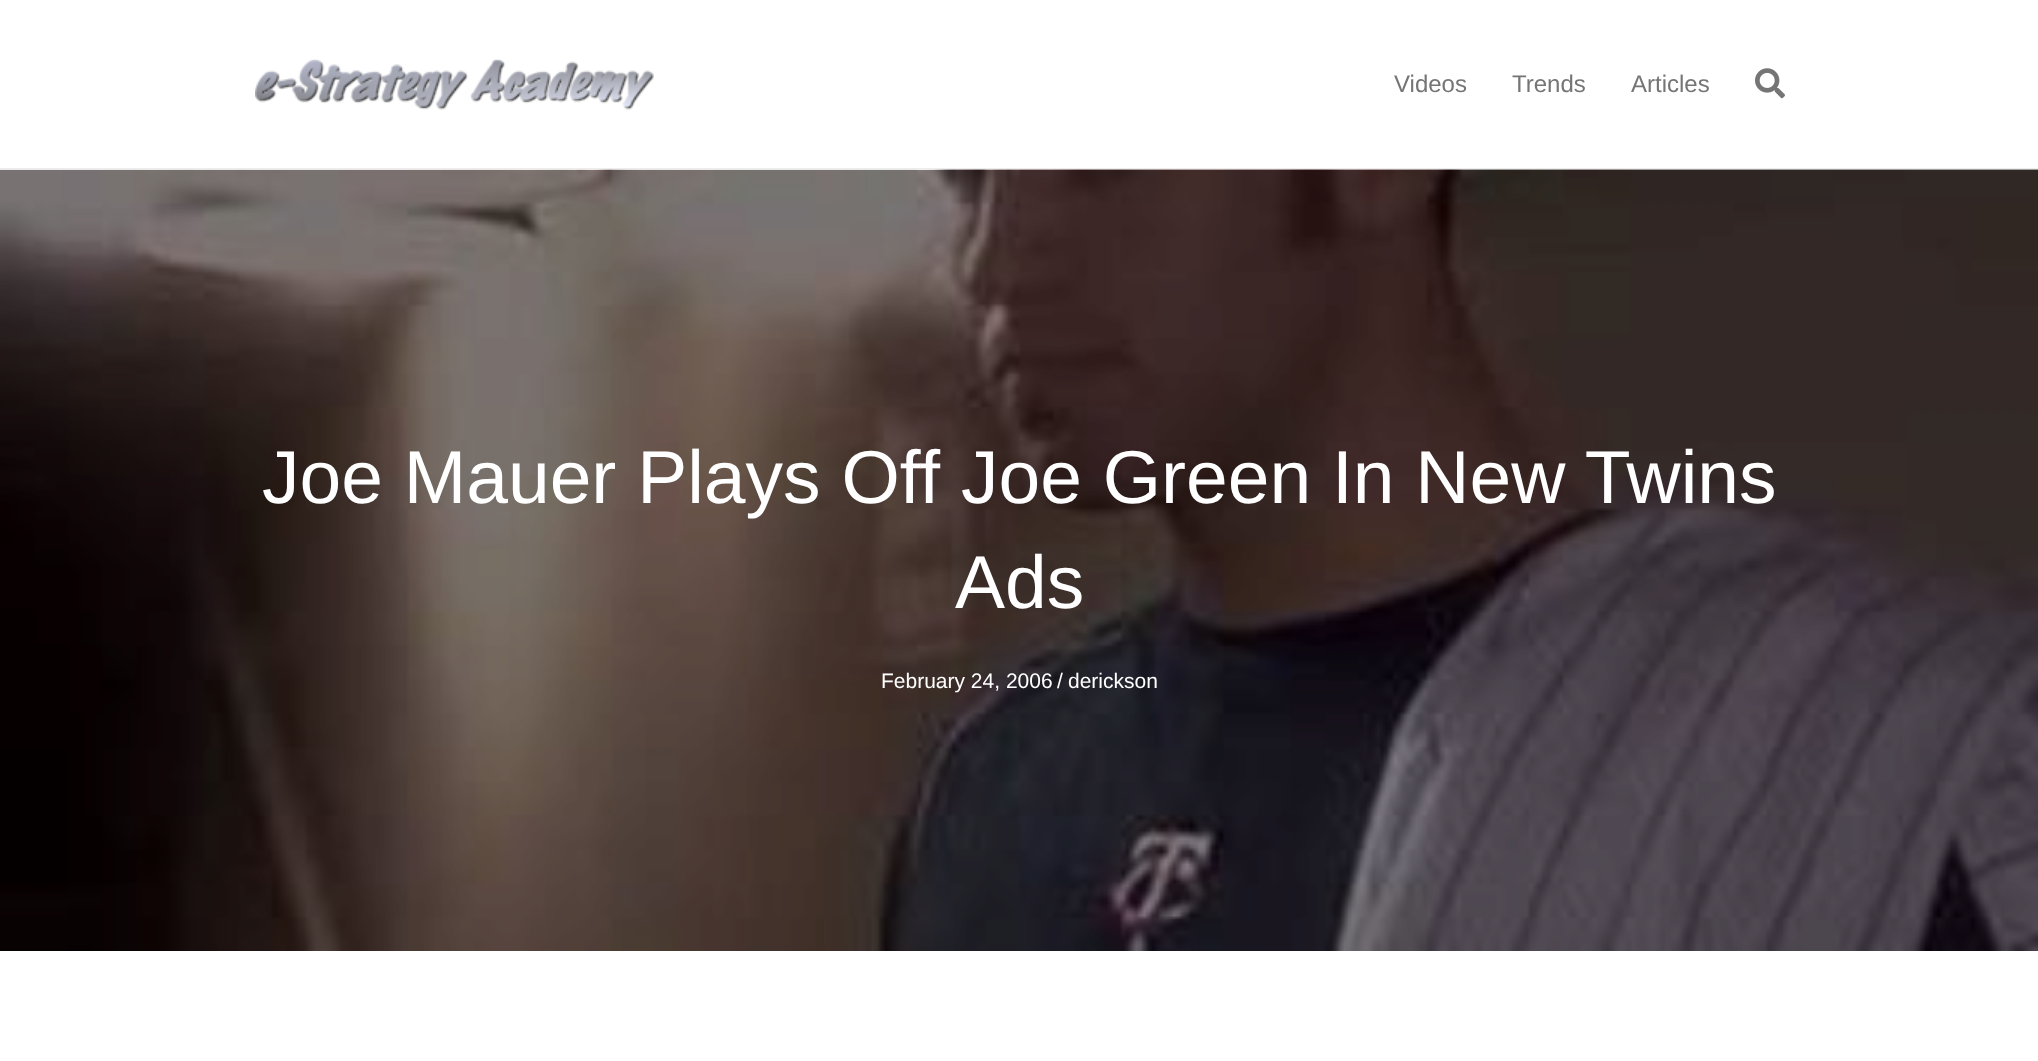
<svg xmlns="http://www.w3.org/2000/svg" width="2038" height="1061">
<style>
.a{font:24px Liberation Sans;fill:#757575}
.b{font:75px Liberation Sans;fill:#fff}
.c{font:21px Liberation Sans;fill:#fff}
</style>
<rect width="100%" height="100%" fill="#fff"/>
<path fill="#ededed" d="M0 168h2038v2H0z"/>
<image href="1.png" x="255" y="59" width="399" height="51"/>
<image href="2.png" x="1755" y="68" width="30" height="31"/>
<image href="3.png" x="0" y="169" width="2038" height="782"/>
<text class="a" x="1394" y="92">Videos</text>
<text class="a" x="1512" y="92">Trends</text>
<text class="a" x="1631" y="92">Articles</text>
<text class="b" x="262" y="503">Joe Mauer Plays Off Joe Green In New Twins</text>
<text class="b" x="955" y="608">Ads</text>
<text class="c" x="881" y="688">February 24, 2006</text>
<text class="c" x="1057" y="688">/</text>
<text class="c" x="1068" y="688">derickson</text>
</svg>
